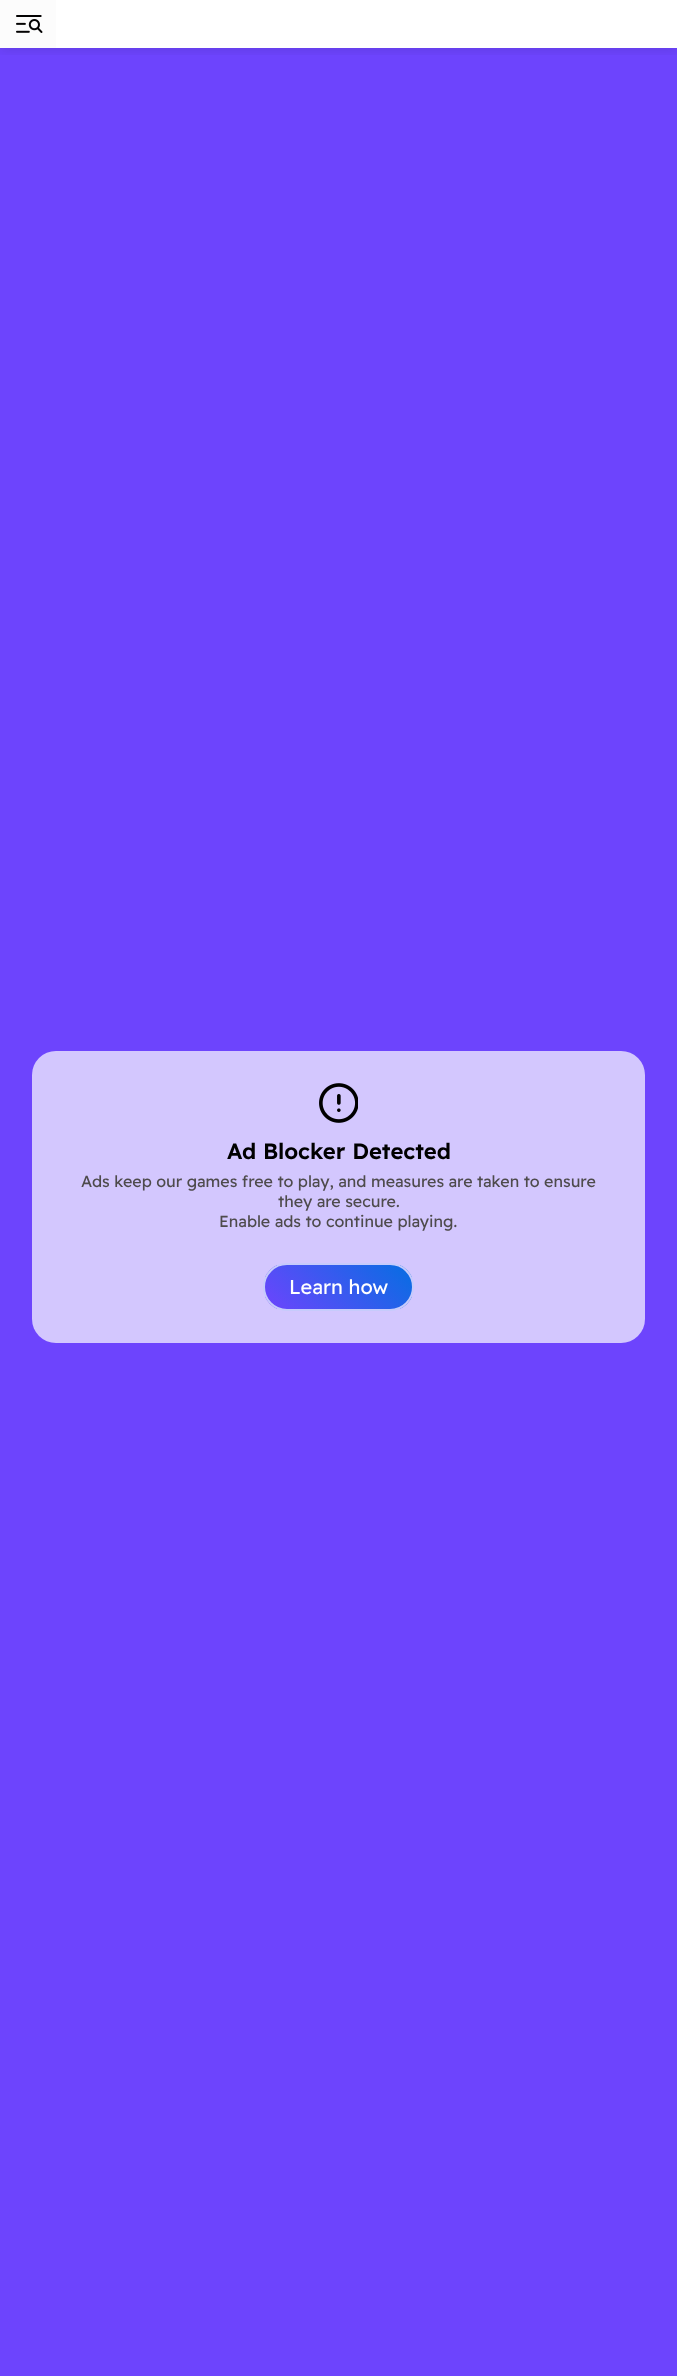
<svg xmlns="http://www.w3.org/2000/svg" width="677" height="2376">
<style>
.a{font:600 22px Readex Pro;fill:#000}
.b{font:16px Readex Pro;fill:#4e4b4c}
.c{font:20px Readex Pro;fill:#fff}
</style>
<defs>
<clipPath id="clip1"><path d="M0 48h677v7H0z"/></clipPath>
<clipPath id="clip2"><rect x="263" y="1263" width="151" height="48" rx="24"/></clipPath>
<linearGradient id="g1" gradientUnits="userSpaceOnUse" x1="291" y1="1335" x2="386" y2="1239"><stop offset="0" stop-color="#6d44fd"/><stop offset="1" stop-color="#066ee2"/></linearGradient>
</defs>
<rect width="100%" height="100%" fill="#fff"/>
<path fill="#6d44fd" d="M0 48h677v2328H0z"/>
<g clip-path="url(#clip1)">
<path fill="#0000001a" filter="blur(6px)" d="M0 2h677v48H0z"/>
</g>
<path fill="#fcfcfc" d="M0 0h56v48H0z"/>
<image href="1.png" x="16" y="15" width="27" height="18"/>
<rect fill="#d3c7fe" x="32" y="1051" width="613" height="292" rx="24"/>
<image href="2.png" x="319" y="1083" width="39" height="40"/>
<g clip-path="url(#clip2)">
<path fill="url(#g1)" d="M265 1265h147v44H265z"/>
</g>
<rect fill="none" stroke="#c6cbfb" stroke-width="2" x="264" y="1264" width="149" height="46" rx="23"/>
<text class="a" x="227" y="1159">Ad Blocker Detected</text>
<text class="b" x="81" y="1187">Ads keep our games free to play, and measures are taken to ensure</text>
<text class="b" x="278" y="1207">they are secure.</text>
<text class="b" x="219" y="1227">Enable ads to continue playing.</text>
<text class="c" x="289" y="1294">Learn how</text>
</svg>
